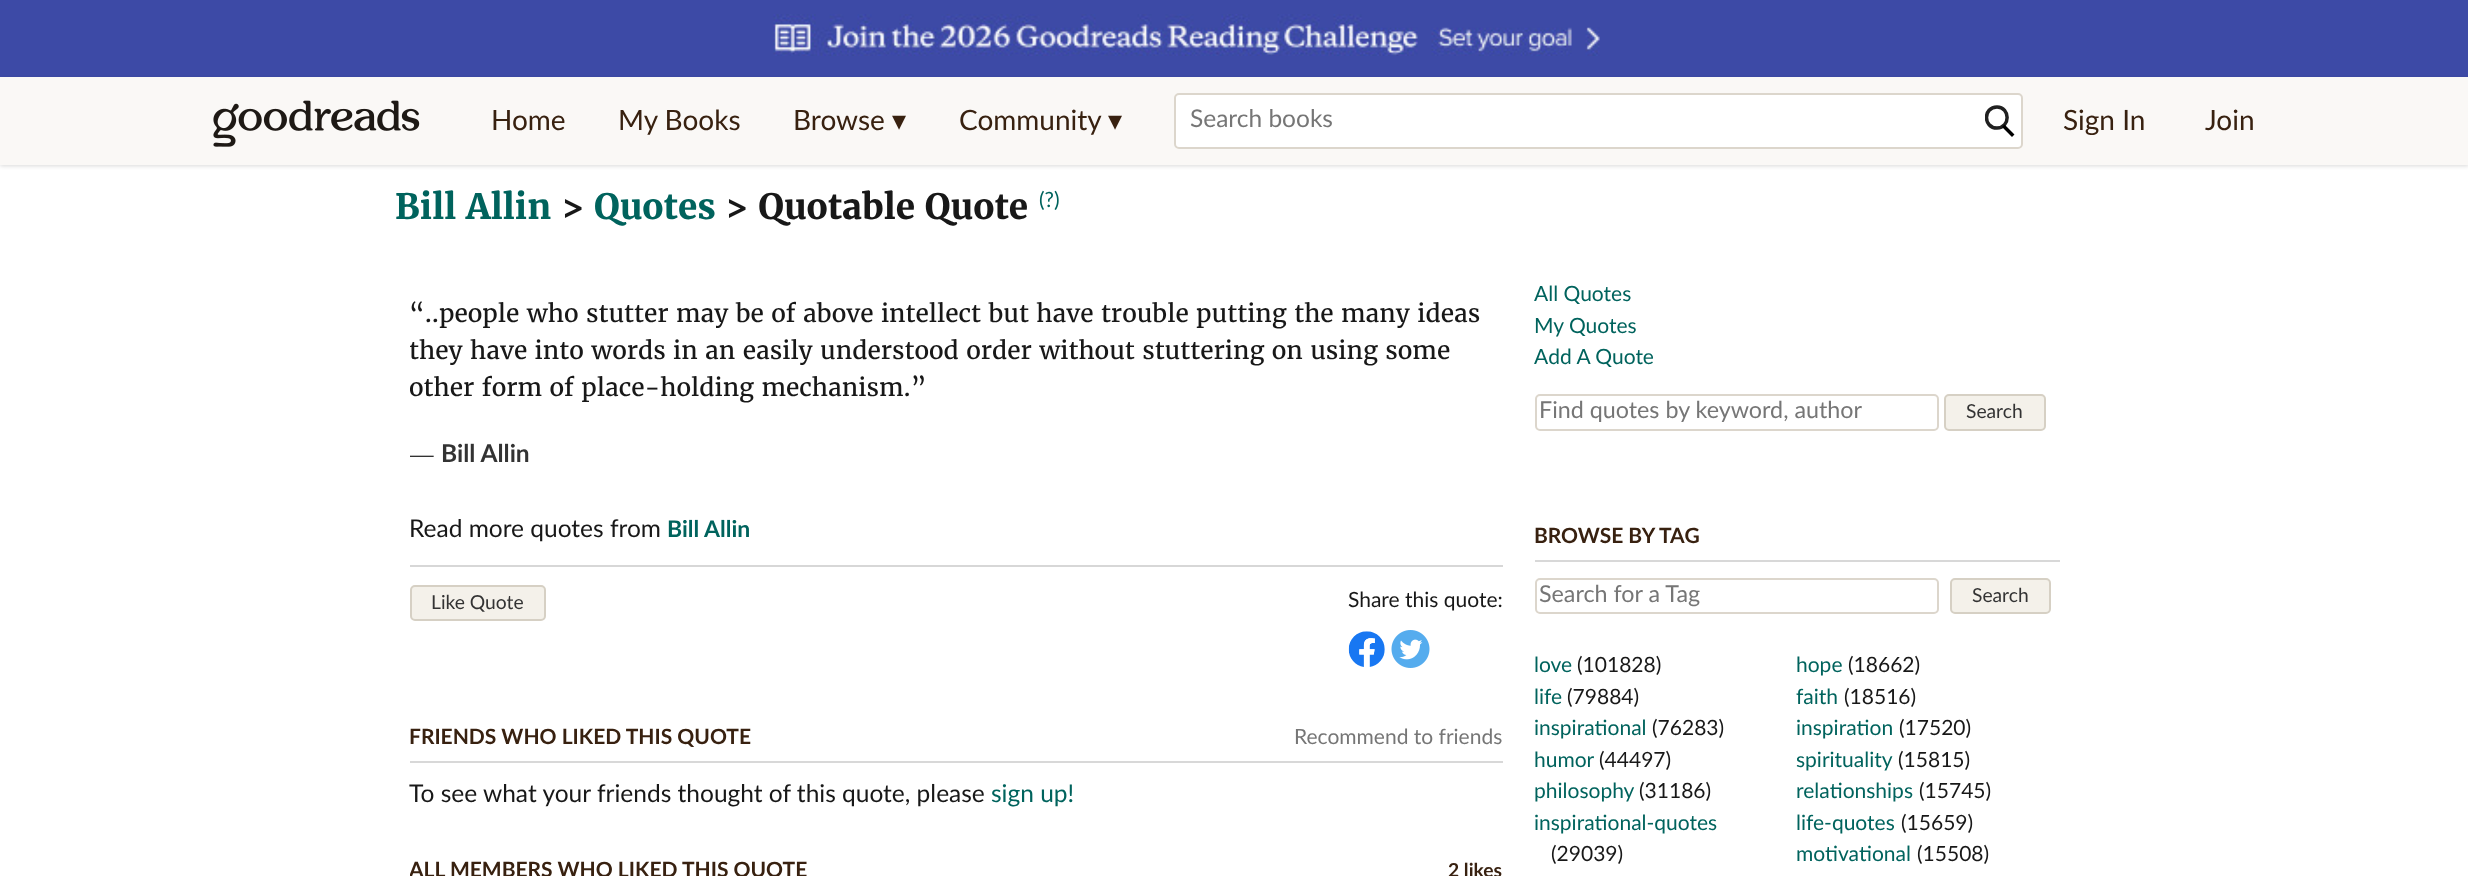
<svg xmlns="http://www.w3.org/2000/svg" width="2468" height="876">
<style>
.a{font:28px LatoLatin;fill:#382110}
.b{font:28px DejaVu Sans;fill:#382110}
.c{font:24.5px LatoLatin;fill:#767676}
.d{font:bold 35px Merriweather;fill:#00635d}
.e{font:bold 35px Merriweather;fill:#181818}
.f{font:21px LatoLatin;fill:#00635d}
.g{font:24.5px Merriweather;fill:#181818}
.h{font:24.5px Liberation Serif;fill:#181818}
.i{font:bold 24.5px LatoLatin;fill:#333}
.j{font:24.5px LatoLatin;fill:#181818}
.k{font:bold 23px LatoLatin;fill:#00635d}
.l{font:19.25px LatoLatin;fill:#333}
.m{font:21px LatoLatin;fill:#181818}
.n{font:bold 21px LatoLatin;fill:#382110}
.o{font:21px LatoLatin;fill:#767676}
.p{font:24.5px LatoLatin;fill:#00635d}
.q{font:bold 19.25px LatoLatin;fill:#382110}
.r{font:23.3px LatoLatin;fill:#767676}
</style>
<defs>
<clipPath id="clip1"><path d="M1985 105h31v33H1985z"/></clipPath>
<clipPath id="clip2"><path d="M410 278h1093v287H410z"/></clipPath>
<clipPath id="clip3"><path d="M410 845h1093v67H410z"/></clipPath>
</defs>
<rect width="100%" height="100%" fill="#fff"/>
<path fill="#3d4aa6" d="M0 0h2468v77H0z"/>
<image href="1.png" x="773" y="14" width="827" height="42"/>
<path fill="#00000026" filter="blur(2px)" d="M0 79h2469v87H0z"/>
<path fill="#faf8f6" d="M0 77h2468v88H0z"/>
<image href="2.png" x="213" y="100" width="207" height="47"/>
<rect fill="#fff" stroke="#dcd6cc" stroke-width="2" x="1175" y="94" width="847" height="54" rx="4"/>
<g clip-path="url(#clip1)">
<path fill="none" stroke="#202020" stroke-width="3.5" d="M1997 128c13.5 0 13.5-21 0-21c-14 0-14 21 0 21z"/>
</g>
<path fill="none" stroke="#000" stroke-width="3.5" stroke-linecap="square" d="M2004.5 127l7.5 7.5"/>
<path fill="#d7d7d7" d="M410 565h1093v2H410z"/>
<rect fill="#f4f1ea" stroke="#d6d0c4" stroke-width="2" x="411" y="586" width="134" height="34" rx="4"/>
<image href="3.png" x="1348" y="631" width="37" height="36"/>
<image href="4.png" x="1391" y="630" width="39" height="38"/>
<path fill="#d8d8d8" d="M410 761h1093v2H410z"/>
<rect fill="none" stroke="#dcd6cc" stroke-width="2" x="1536" y="395" width="402" height="35" rx="4"/>
<rect fill="#f4f1ea" stroke="#d6d0c4" stroke-width="2" x="1945" y="395" width="100" height="35" rx="4"/>
<path fill="#d8d8d8" d="M1535 560h525v2H1535z"/>
<rect fill="none" stroke="#dcd6cc" stroke-width="2" x="1536" y="579" width="402" height="34" rx="4"/>
<rect fill="#f4f1ea" stroke="#d6d0c4" stroke-width="2" x="1951" y="579" width="99" height="34" rx="4"/>
<text class="a" x="491" y="130">Home</text>
<text class="a" x="618" y="130">My Books</text>
<text class="a" x="793" y="130">Browse</text>
<text class="b" x="892" y="130">▾</text>
<text class="a" x="959" y="130">Community</text>
<text class="b" x="1108" y="130">▾</text>
<text class="c" x="1190" y="127">Search books</text>
<text class="a" x="2063" y="130">Sign In</text>
<text class="a" x="2205" y="130">Join</text>
<text class="d" x="395" y="219">Bill Allin</text>
<text class="e" x="561" y="219">&gt;</text>
<text class="d" x="594" y="219">Quotes</text>
<text class="e" x="725" y="219">&gt; Quotable Quote</text>
<text class="f" x="1039" y="207">(?)</text>
<text class="g" x="409" y="322">“..people who stutter may be of above intellect but have trouble putting the many ideas</text>
<g clip-path="url(#clip2)">
<text class="g" x="409" y="359">they have into words in an easily understood order without stuttering on using some</text>
<text class="g" x="409" y="396">other form of place-holding mechanism.”</text>
<text class="h" x="409" y="462">―</text>
</g>
<text class="i" x="441" y="462">Bill Allin</text>
<text class="j" x="409" y="537">Read more quotes from</text>
<text class="k" x="667" y="537">Bill Allin</text>
<text class="l" x="431" y="609">Like Quote</text>
<text class="m" x="1348" y="607">Share this quote:</text>
<text class="n" x="409" y="744">FRIENDS WHO LIKED THIS QUOTE</text>
<text class="o" x="1294" y="744">Recommend to friends</text>
<text class="j" x="409" y="802">To see what your friends thought of this quote, please</text>
<text class="p" x="991" y="802">sign up!</text>
<g clip-path="url(#clip3)">
<text class="n" x="409" y="877">ALL MEMBERS WHO LIKED THIS QUOTE</text>
</g>
<text class="q" x="1448" y="877">2 likes</text>
<text class="f" x="1534" y="301">All Quotes</text>
<text class="f" x="1534" y="333">My Quotes</text>
<text class="f" x="1534" y="364">Add A Quote</text>
<text class="r" x="1539" y="418">Find quotes by keyword, author</text>
<text class="l" x="1966" y="418">Search</text>
<text class="n" x="1534" y="543">BROWSE BY TAG</text>
<text class="r" x="1539" y="602">Search for a Tag</text>
<text class="l" x="1972" y="602">Search</text>
<text class="f" x="1534" y="672">love</text>
<text class="m" x="1577" y="672">(101828)</text>
<text class="f" x="1534" y="704">life</text>
<text class="m" x="1567" y="704">(79884)</text>
<text class="f" x="1534" y="735">inspirational</text>
<text class="m" x="1652" y="735">(76283)</text>
<text class="f" x="1534" y="767">humor</text>
<text class="m" x="1599" y="767">(44497)</text>
<text class="f" x="1534" y="798">philosophy</text>
<text class="m" x="1639" y="798">(31186)</text>
<text class="f" x="1534" y="830">inspirational-quotes</text>
<text class="m" x="1551" y="861">(29039)</text>
<text class="f" x="1796" y="672">hope</text>
<text class="m" x="1848" y="672">(18662)</text>
<text class="f" x="1796" y="704">faith</text>
<text class="m" x="1844" y="704">(18516)</text>
<text class="f" x="1796" y="735">inspiration</text>
<text class="m" x="1899" y="735">(17520)</text>
<text class="f" x="1796" y="767">spirituality</text>
<text class="m" x="1898" y="767">(15815)</text>
<text class="f" x="1796" y="798">relationships</text>
<text class="m" x="1919" y="798">(15745)</text>
<text class="f" x="1796" y="830">life-quotes</text>
<text class="m" x="1901" y="830">(15659)</text>
<text class="f" x="1796" y="861">motivational</text>
<text class="m" x="1917" y="861">(15508)</text>
</svg>
